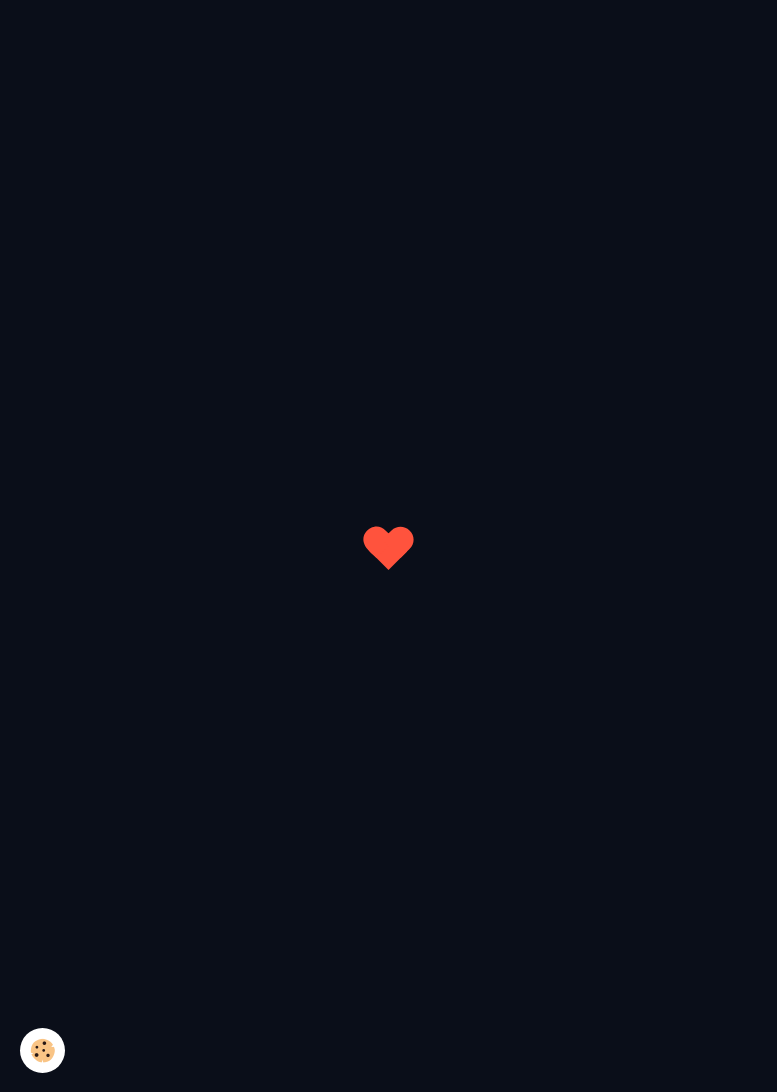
<svg xmlns="http://www.w3.org/2000/svg" width="777" height="1092">
<rect width="100%" height="100%" fill="#0a0e19"/>
<path fill="#ff533d" d="M388.5 533.5l18.5 18l-18.5 18.5l-18.5-18.5z"/>
<path fill="#ff533d" d="M385.5 530.5l9.5 9l-18.5 18.5c-3.5-3.5-10.5-9-12-13.5c-5.5-13 11.5-24 21-14z"/>
<path fill="#ff533d" d="M409.5 530.5c5.5 5 5.5 13.5 0 18.5l-9 9l-18.5-18.5l9.5-9c5-5 13-5 18 0z"/>
<circle fill="#fff" cx="42.5" cy="1050.5" r="22.5"/>
<image href="1.png" x="30" y="1038" width="25" height="25"/>
</svg>
